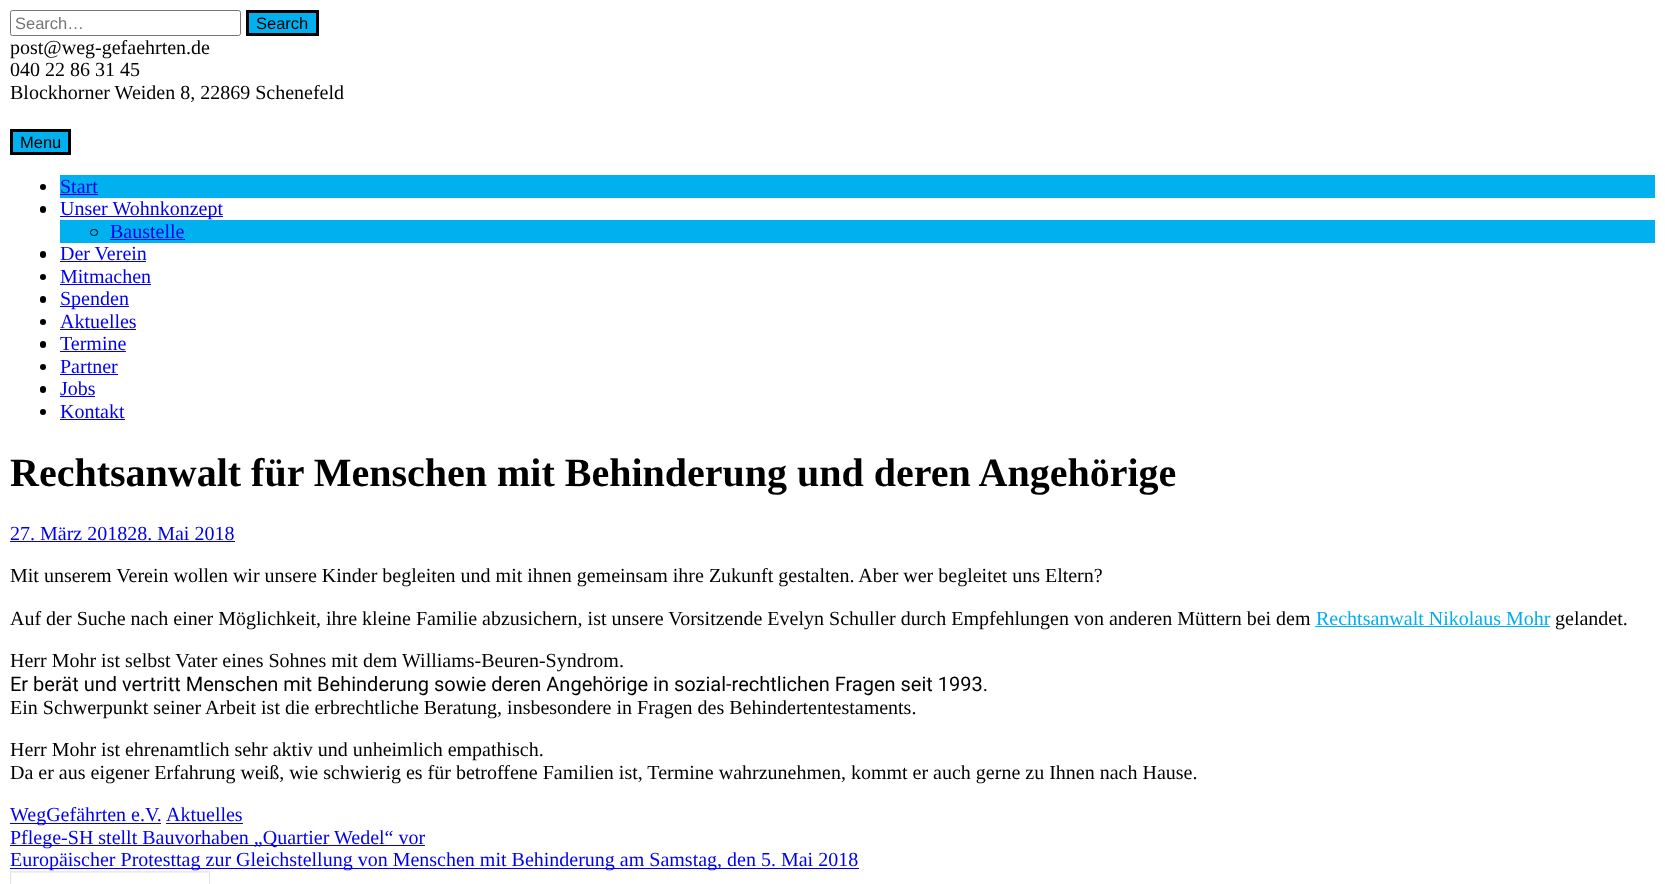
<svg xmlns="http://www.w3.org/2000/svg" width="1665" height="884">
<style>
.a{font:16.5px Liberation Sans;fill:#757575}
.b{font:16.5px Liberation Sans;fill:#000}
.c{font:20px Liberation Serif;fill:#000}
.d{font:20px Liberation Serif;fill:#00e}
.e{font:bold 40px Liberation Serif;fill:#000}
.f{font:20px Liberation Serif;fill:#00b0ef}
.g{font:20px Roboto;fill:#000}
</style>
<rect width="100%" height="100%" fill="#fff"/>
<rect fill="none" stroke="#767676" x="10.5" y="10.5" width="230" height="25" rx="2"/>
<path fill="#00b0ef" stroke="#000" stroke-width="3" d="M247.5 11.5h70v23H247.5z"/>
<path fill="#00b0ef" stroke="#000" stroke-width="3" d="M11.5 130.5h58v23H11.5z"/>
<path fill="#00b0ef" d="M60 175h1595v23H60z"/>
<circle fill="#000" cx="43" cy="187" r="3"/>
<path fill="#00e" d="M60 194h38v1H60z"/>
<rect fill="#000" x="40" y="206" width="6" height="7" rx="3"/>
<path fill="#00e" d="M60 216h163v1H60z"/>
<path fill="#00b0ef" d="M60 220h1595v23H60z"/>
<rect fill="none" stroke="#000" x="90.5" y="229.5" width="7" height="6" rx="3"/>
<path fill="#00e" d="M110 239h75v1H110z"/>
<rect fill="#000" x="40" y="251" width="6" height="7" rx="3"/>
<path fill="#00e" d="M60 261h86v1H60z"/>
<circle fill="#000" cx="43" cy="277" r="3"/>
<path fill="#00e" d="M60 284h91v1H60z"/>
<rect fill="#000" x="40" y="296" width="6" height="7" rx="3"/>
<path fill="#00e" d="M60 306h69v1H60z"/>
<circle fill="#000" cx="43" cy="322" r="3"/>
<path fill="#00e" d="M60 329h76v1H60z"/>
<rect fill="#000" x="40" y="341" width="6" height="7" rx="3"/>
<path fill="#00e" d="M60 351h66v1H60z"/>
<circle fill="#000" cx="43" cy="367" r="3"/>
<path fill="#00e" d="M60 374h58v1H60z"/>
<rect fill="#000" x="40" y="386" width="6" height="7" rx="3"/>
<path fill="#00e" d="M60 396h35v1H60z"/>
<circle fill="#000" cx="43" cy="412" r="3"/>
<path fill="#00e" d="M60 419h65v1H60z"/>
<path fill="#00e" d="M10 541h225v1H10z"/>
<path fill="#00b0ef" d="M1315 626h235v1H1315z"/>
<path fill="#00e" d="M10 823h151v1H10z"/>
<path fill="#00e" d="M166 823h77v1H166z"/>
<path fill="#00e" d="M10 845h415v1H10z"/>
<path fill="#00e" d="M10 868h849v1H10z"/>
<image href="1.png" x="10" y="871" width="200" height="13"/>
<text class="a" x="15" y="29">Search…</text>
<text class="b" x="256" y="29">Search</text>
<text class="c" x="10" y="54">post@weg-gefaehrten.de</text>
<text class="c" x="10" y="76">040 22 86 31 45</text>
<text class="c" x="10" y="99">Blockhorner Weiden 8, 22869 Schenefeld</text>
<text class="b" x="20" y="148">Menu</text>
<text class="d" x="60" y="193">Start</text>
<text class="d" x="60" y="215">Unser Wohnkonzept</text>
<text class="d" x="110" y="238">Baustelle</text>
<text class="d" x="60" y="260">Der Verein</text>
<text class="d" x="60" y="283">Mitmachen</text>
<text class="d" x="60" y="305">Spenden</text>
<text class="d" x="60" y="328">Aktuelles</text>
<text class="d" x="60" y="350">Termine</text>
<text class="d" x="60" y="373">Partner</text>
<text class="d" x="60" y="395">Jobs</text>
<text class="d" x="60" y="418">Kontakt</text>
<text class="e" x="10" y="486">Rechtsanwalt für Menschen mit Behinderung und deren Angehörige</text>
<text class="d" x="10" y="540">27. März 201828. Mai 2018</text>
<text class="c" x="10" y="582">Mit unserem Verein wollen wir unsere Kinder begleiten und mit ihnen gemeinsam ihre Zukunft gestalten. Aber wer begleitet uns Eltern?</text>
<text class="c" x="10" y="625">Auf der Suche nach einer Möglichkeit, ihre kleine Familie abzusichern, ist unsere Vorsitzende Evelyn Schuller durch Empfehlungen von anderen Müttern bei dem</text>
<text class="f" x="1316" y="625">Rechtsanwalt Nikolaus Mohr</text>
<text class="c" x="1555" y="625">gelandet.</text>
<text class="c" x="10" y="667">Herr Mohr ist selbst Vater eines Sohnes mit dem Williams-Beuren-Syndrom.</text>
<text class="g" x="10" y="691">Er berät und vertritt Menschen mit Behinderung sowie deren Angehörige in sozial-rechtlichen Fragen seit 1993.</text>
<text class="c" x="10" y="714">Ein Schwerpunkt seiner Arbeit ist die erbrechtliche Beratung, insbesondere in Fragen des Behindertentestaments.</text>
<text class="c" x="10" y="756">Herr Mohr ist ehrenamtlich sehr aktiv und unheimlich empathisch.</text>
<text class="c" x="10" y="779">Da er aus eigener Erfahrung weiß, wie schwierig es für betroffene Familien ist, Termine wahrzunehmen, kommt er auch gerne zu Ihnen nach Hause.</text>
<text class="d" x="10" y="821">WegGefährten e.V.</text>
<text class="d" x="166" y="821">Aktuelles</text>
<text class="d" x="10" y="844">Pflege-SH stellt Bauvorhaben „Quartier Wedel“ vor</text>
<text class="d" x="10" y="866">Europäischer Protesttag zur Gleichstellung von Menschen mit Behinderung am Samstag, den 5. Mai 2018</text>
</svg>
